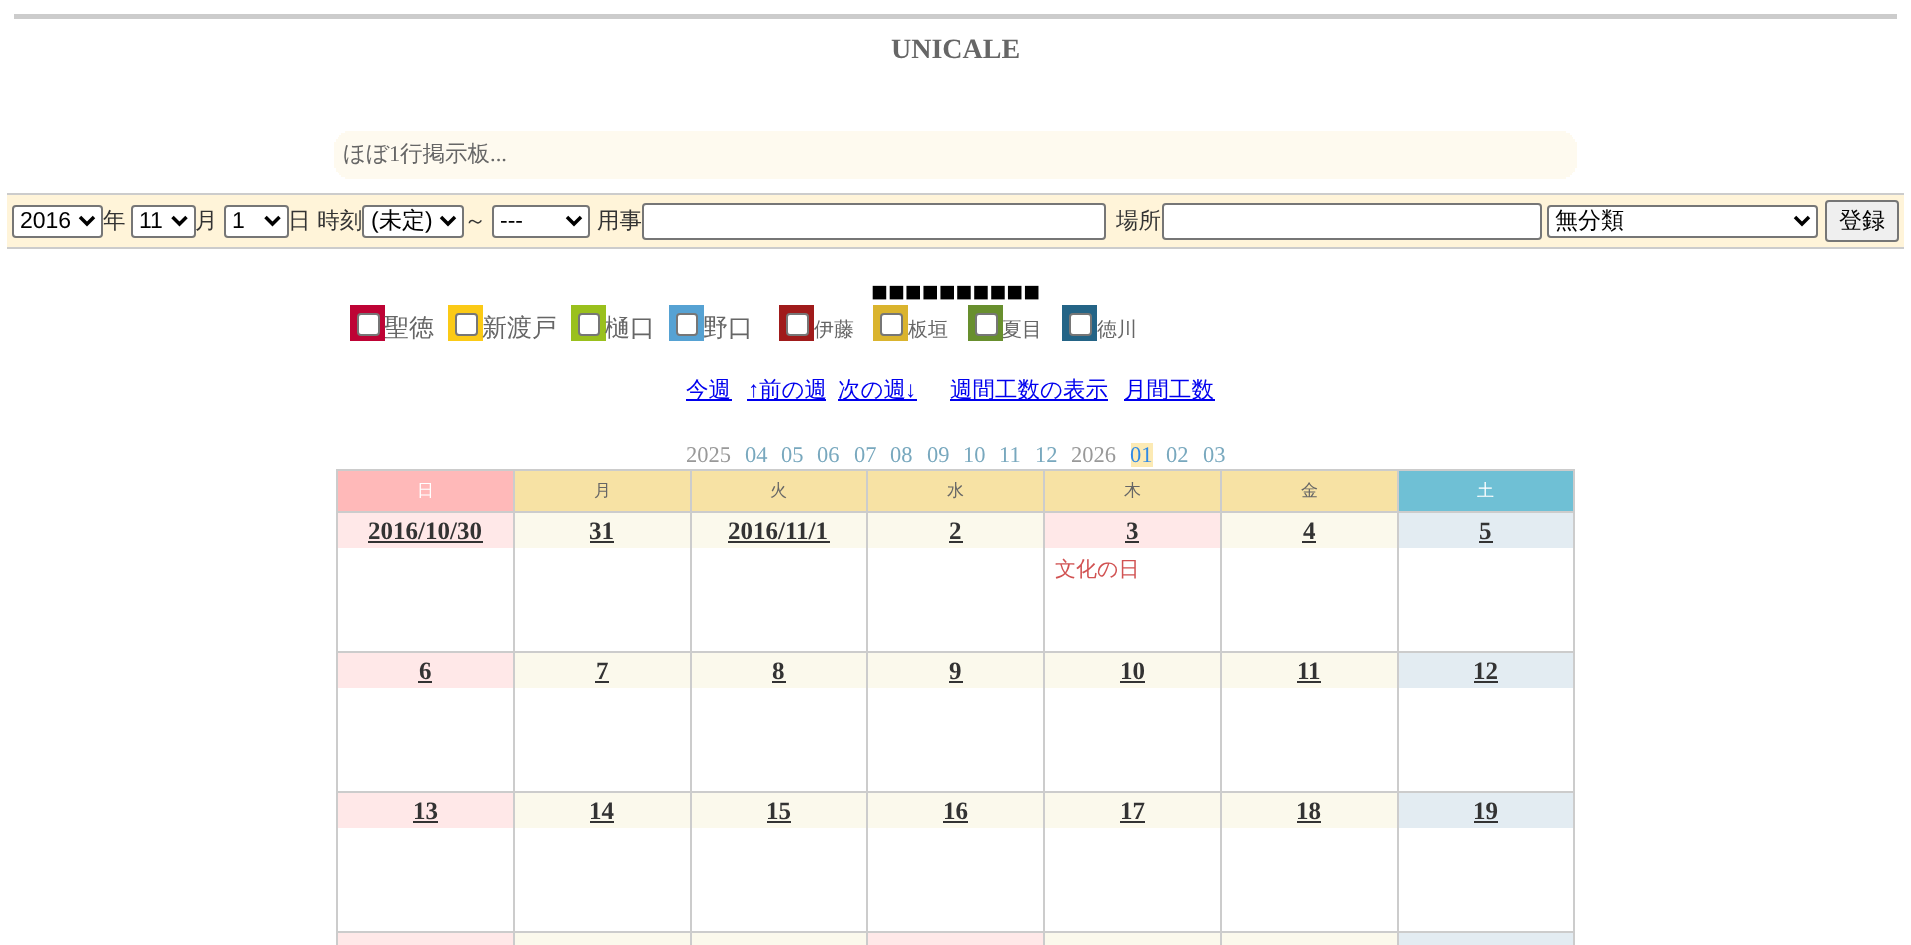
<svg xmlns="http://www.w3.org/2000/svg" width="1911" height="945">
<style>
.a{font:bold 28px Liberation Serif;fill:#666}
.b{font:500 22.5px WenQuanYi Zen Hei;fill:#666}
.c{font:22.5px Liberation Serif;fill:#666}
.d{font:23px Liberation Sans;fill:#000}
.e{font:500 22.5px WenQuanYi Zen Hei;fill:#333}
.f{font:500 23px WenQuanYi Zen Hei;fill:#000}
.g{font:28px Liberation Serif;fill:#000}
.h{font:500 25px WenQuanYi Zen Hei;fill:#666}
.i{font:500 20px WenQuanYi Zen Hei;fill:#666}
.j{font:500 22.5px WenQuanYi Zen Hei;fill:#00e}
.k{font:22.5px Liberation Serif;fill:#00e}
.l{font:22.5px Liberation Serif;fill:#999}
.m{font:22.5px Liberation Serif;fill:#78a8be}
.n{font:22.5px Liberation Serif;fill:#2f8ae6}
.o{font:500 17px WenQuanYi Zen Hei;fill:#fff}
.p{font:500 17px WenQuanYi Zen Hei;fill:#666}
.q{font:bold 25px Liberation Serif;fill:#333}
.r{font:500 21px WenQuanYi Zen Hei;fill:#d15252}
</style>
<rect width="100%" height="100%" fill="#fff"/>
<path fill="#ccc" d="M14 14h1883v5H14z"/>
<path fill="#fefaef" d="M334 131h1243v48H334z"/>
<path fill="#fff" d="M1566 131h11v2H1566z"/>
<path fill="#fff" d="M334 131h11v2H334z"/>
<path fill="#fff" d="M1570 133h7v2H1570z"/>
<path fill="#fff" d="M334 133h7v2H334z"/>
<path fill="#fff" d="M1572 135h5v2H1572z"/>
<path fill="#fff" d="M334 135h5v2H334z"/>
<path fill="#fff" d="M1573 137h4v2H1573z"/>
<path fill="#fff" d="M334 137h4v2H334z"/>
<path fill="#fff" d="M1575 139h2v3H1575z"/>
<path fill="#fff" d="M334 139h2v3H334z"/>
<path fill="#fff" d="M1575 168h2v4H1575z"/>
<path fill="#fff" d="M334 168h2v4H334z"/>
<path fill="#fff" d="M1573 172h4v1H1573z"/>
<path fill="#fff" d="M334 172h4v1H334z"/>
<path fill="#fff" d="M1572 173h5v2H1572z"/>
<path fill="#fff" d="M334 173h5v2H334z"/>
<path fill="#fff" d="M1570 175h7v2H1570z"/>
<path fill="#fff" d="M334 175h7v2H334z"/>
<path fill="#fff" d="M1566 177h11v2H1566z"/>
<path fill="#fff" d="M334 177h11v2H334z"/>
<path fill="#fff4d9" d="M7 195h1897v52H7z"/>
<path fill="#ccc" d="M7 193h1897v2H7z"/>
<path fill="#ccc" d="M7 247h1897v2H7z"/>
<rect fill="#fff" stroke="#767676" stroke-width="2" x="13" y="206" width="89" height="31" rx="3"/>
<path fill="none" stroke="#000" stroke-width="3.5" d="M80 217l7 7l7-7"/>
<rect fill="#fff" stroke="#767676" stroke-width="2" x="132" y="206" width="63" height="31" rx="3"/>
<path fill="none" stroke="#000" stroke-width="3.5" d="M172.5 217l7 7l7-7"/>
<rect fill="#fff" stroke="#767676" stroke-width="2" x="225" y="206" width="63" height="31" rx="3"/>
<path fill="none" stroke="#000" stroke-width="3.5" d="M265.5 217l7 7l7-7"/>
<rect fill="#fff" stroke="#767676" stroke-width="2" x="363" y="206" width="100" height="31" rx="3"/>
<path fill="none" stroke="#000" stroke-width="3.5" d="M441 217l7 7l7-7"/>
<rect fill="#fff" stroke="#767676" stroke-width="2" x="493" y="206" width="96" height="31" rx="3"/>
<path fill="none" stroke="#000" stroke-width="3.5" d="M567 217l7 7l7-7"/>
<rect fill="#fff" stroke="#767676" stroke-width="2" x="643" y="204" width="462" height="35" rx="3"/>
<rect fill="#fff" stroke="#767676" stroke-width="2" x="1163" y="204" width="378" height="35" rx="3"/>
<rect fill="#fff" stroke="#767676" stroke-width="2" x="1548" y="206" width="269" height="31" rx="3"/>
<path fill="none" stroke="#000" stroke-width="3.5" d="M1795 217l7 7l7-7"/>
<rect fill="#efefef" stroke="#767676" stroke-width="2" x="1826" y="201" width="72" height="40" rx="3"/>
<path fill="#be0335" d="M350 305h35v36H350z"/>
<rect fill="#fff" stroke="#767676" stroke-width="2" x="358" y="314" width="21" height="21" rx="3"/>
<path fill="#fbca16" d="M448 305h35v36H448z"/>
<rect fill="#fff" stroke="#767676" stroke-width="2" x="456" y="314" width="21" height="21" rx="3"/>
<path fill="#9ac01d" d="M571 305h35v36H571z"/>
<rect fill="#fff" stroke="#767676" stroke-width="2" x="579" y="314" width="20" height="21" rx="3"/>
<path fill="#56a2d3" d="M669 305h35v36H669z"/>
<rect fill="#fff" stroke="#767676" stroke-width="2" x="677" y="314" width="20" height="21" rx="3"/>
<path fill="#a01b1b" d="M779 305h35v36H779z"/>
<rect fill="#fff" stroke="#767676" stroke-width="2" x="787" y="314" width="21" height="21" rx="3"/>
<path fill="#dab42e" d="M873 305h35v36H873z"/>
<rect fill="#fff" stroke="#767676" stroke-width="2" x="881" y="314" width="21" height="21" rx="3"/>
<path fill="#688f2e" d="M968 305h35v36H968z"/>
<rect fill="#fff" stroke="#767676" stroke-width="2" x="976" y="314" width="21" height="21" rx="3"/>
<path fill="#246486" d="M1062 305h35v36H1062z"/>
<rect fill="#fff" stroke="#767676" stroke-width="2" x="1070" y="314" width="21" height="21" rx="3"/>
<path fill="#00e" d="M686 399h46v2H686z"/>
<path fill="#00e" d="M747 399h79v2H747z"/>
<path fill="#00e" d="M838 399h79v2H838z"/>
<path fill="#00e" d="M950 399h158v2H950z"/>
<path fill="#00e" d="M1124 399h91v2H1124z"/>
<path fill="#fceab4" d="M1131 443h22v24H1131z"/>
<path fill="#ffb9b9" d="M338 471h175v40H338z"/>
<path fill="#ccc" d="M1397 469h178v2H1397z"/>
<path fill="#ccc" d="M1397 511h178v2H1397z"/>
<path fill="#ccc" d="M1397 651h178v2H1397z"/>
<path fill="#ccc" d="M1397 791h178v2H1397z"/>
<path fill="#ccc" d="M1397 931h178v2H1397z"/>
<path fill="#ccc" d="M1397 931h2v14H1397z"/>
<path fill="#ccc" d="M1220 931h178v2H1220z"/>
<path fill="#ccc" d="M1397 791h2v142H1397z"/>
<path fill="#ccc" d="M1220 791h178v2H1220z"/>
<path fill="#ccc" d="M1397 651h2v142H1397z"/>
<path fill="#ccc" d="M1220 651h178v2H1220z"/>
<path fill="#ccc" d="M1397 511h2v142H1397z"/>
<path fill="#ccc" d="M1220 511h178v2H1220z"/>
<path fill="#ccc" d="M1397 469h2v44H1397z"/>
<path fill="#ccc" d="M1220 469h178v2H1220z"/>
<path fill="#ccc" d="M1220 931h2v14H1220z"/>
<path fill="#ccc" d="M1043 931h179v2H1043z"/>
<path fill="#ccc" d="M1220 791h2v142H1220z"/>
<path fill="#ccc" d="M1043 791h179v2H1043z"/>
<path fill="#ccc" d="M1220 651h2v142H1220z"/>
<path fill="#ccc" d="M1043 651h179v2H1043z"/>
<path fill="#ccc" d="M1220 511h2v142H1220z"/>
<path fill="#ccc" d="M1043 511h179v2H1043z"/>
<path fill="#ccc" d="M1220 469h2v44H1220z"/>
<path fill="#ccc" d="M1043 469h179v2H1043z"/>
<path fill="#ccc" d="M1043 931h2v14H1043z"/>
<path fill="#ccc" d="M866 931h179v2H866z"/>
<path fill="#ccc" d="M1043 791h2v142H1043z"/>
<path fill="#ccc" d="M866 791h179v2H866z"/>
<path fill="#ccc" d="M1043 651h2v142H1043z"/>
<path fill="#ccc" d="M866 651h179v2H866z"/>
<path fill="#ccc" d="M1043 511h2v142H1043z"/>
<path fill="#ccc" d="M866 511h179v2H866z"/>
<path fill="#ccc" d="M1043 469h2v44H1043z"/>
<path fill="#ccc" d="M866 469h179v2H866z"/>
<path fill="#ccc" d="M866 931h2v14H866z"/>
<path fill="#ccc" d="M690 931h178v2H690z"/>
<path fill="#ccc" d="M866 791h2v142H866z"/>
<path fill="#ccc" d="M690 791h178v2H690z"/>
<path fill="#ccc" d="M866 651h2v142H866z"/>
<path fill="#ccc" d="M690 651h178v2H690z"/>
<path fill="#ccc" d="M866 511h2v142H866z"/>
<path fill="#ccc" d="M690 511h178v2H690z"/>
<path fill="#ccc" d="M866 469h2v44H866z"/>
<path fill="#ccc" d="M690 469h178v2H690z"/>
<path fill="#ccc" d="M690 931h2v14H690z"/>
<path fill="#ccc" d="M513 931h178v2H513z"/>
<path fill="#ccc" d="M690 791h2v142H690z"/>
<path fill="#ccc" d="M513 791h178v2H513z"/>
<path fill="#ccc" d="M690 651h2v142H690z"/>
<path fill="#ccc" d="M513 651h178v2H513z"/>
<path fill="#ccc" d="M690 511h2v142H690z"/>
<path fill="#ccc" d="M513 511h178v2H513z"/>
<path fill="#ccc" d="M690 469h2v44H690z"/>
<path fill="#ccc" d="M513 469h178v2H513z"/>
<path fill="#ccc" d="M513 931h2v14H513z"/>
<path fill="#ccc" d="M336 931h179v2H336z"/>
<path fill="#ccc" d="M513 791h2v142H513z"/>
<path fill="#ccc" d="M336 791h179v2H336z"/>
<path fill="#ccc" d="M513 651h2v142H513z"/>
<path fill="#ccc" d="M336 651h179v2H336z"/>
<path fill="#ccc" d="M513 511h2v142H513z"/>
<path fill="#ccc" d="M336 511h179v2H336z"/>
<path fill="#ccc" d="M513 469h2v44H513z"/>
<path fill="#ccc" d="M336 469h179v2H336z"/>
<path fill="#ccc" d="M336 931h2v14H336z"/>
<path fill="#ccc" d="M336 791h2v142H336z"/>
<path fill="#ccc" d="M336 651h2v142H336z"/>
<path fill="#ccc" d="M336 511h2v142H336z"/>
<path fill="#ccc" d="M336 469h2v44H336z"/>
<path fill="#f7e2a4" d="M515 471h175v40H515z"/>
<path fill="#f7e2a4" d="M692 471h174v40H692z"/>
<path fill="#f7e2a4" d="M868 471h175v40H868z"/>
<path fill="#f7e2a4" d="M1045 471h175v40H1045z"/>
<path fill="#f7e2a4" d="M1222 471h175v40H1222z"/>
<path fill="#6fc0d5" d="M1399 471h174v40H1399z"/>
<path fill="#ccc" d="M1573 931h2v14H1573z"/>
<path fill="#ccc" d="M1573 791h2v142H1573z"/>
<path fill="#ccc" d="M1573 651h2v142H1573z"/>
<path fill="#ccc" d="M1573 511h2v142H1573z"/>
<path fill="#ccc" d="M1573 469h2v44H1573z"/>
<path fill="#ffe8e8" d="M338 513h175v35H338z"/>
<path fill="#333" d="M368 541h115v2H368z"/>
<path fill="#fbf9ec" d="M515 513h175v35H515z"/>
<path fill="#333" d="M590 541h24v2H590z"/>
<path fill="#fbf9ec" d="M692 513h174v35H692z"/>
<path fill="#333" d="M728 541h102v2H728z"/>
<path fill="#fbf9ec" d="M868 513h175v35H868z"/>
<path fill="#333" d="M949 541h14v2H949z"/>
<path fill="#ffe8e8" d="M1045 513h175v35H1045z"/>
<path fill="#333" d="M1125 541h14v2H1125z"/>
<path fill="#fbf9ec" d="M1222 513h175v35H1222z"/>
<path fill="#333" d="M1302 541h14v2H1302z"/>
<path fill="#e3ecf2" d="M1399 513h174v35H1399z"/>
<path fill="#333" d="M1479 541h14v2H1479z"/>
<path fill="#ffe8e8" d="M338 653h175v35H338z"/>
<path fill="#333" d="M418 681h14v2H418z"/>
<path fill="#fbf9ec" d="M515 653h175v35H515z"/>
<path fill="#333" d="M595 681h14v2H595z"/>
<path fill="#fbf9ec" d="M692 653h174v35H692z"/>
<path fill="#333" d="M772 681h14v2H772z"/>
<path fill="#fbf9ec" d="M868 653h175v35H868z"/>
<path fill="#333" d="M949 681h14v2H949z"/>
<path fill="#fbf9ec" d="M1045 653h175v35H1045z"/>
<path fill="#333" d="M1120 681h25v2H1120z"/>
<path fill="#fbf9ec" d="M1222 653h175v35H1222z"/>
<path fill="#333" d="M1297 681h24v2H1297z"/>
<path fill="#e3ecf2" d="M1399 653h174v35H1399z"/>
<path fill="#333" d="M1474 681h24v2H1474z"/>
<path fill="#ffe8e8" d="M338 793h175v35H338z"/>
<path fill="#333" d="M413 821h25v2H413z"/>
<path fill="#fbf9ec" d="M515 793h175v35H515z"/>
<path fill="#333" d="M590 821h24v2H590z"/>
<path fill="#fbf9ec" d="M692 793h174v35H692z"/>
<path fill="#333" d="M767 821h24v2H767z"/>
<path fill="#fbf9ec" d="M868 793h175v35H868z"/>
<path fill="#333" d="M943 821h25v2H943z"/>
<path fill="#fbf9ec" d="M1045 793h175v35H1045z"/>
<path fill="#333" d="M1120 821h25v2H1120z"/>
<path fill="#fbf9ec" d="M1222 793h175v35H1222z"/>
<path fill="#333" d="M1297 821h24v2H1297z"/>
<path fill="#e3ecf2" d="M1399 793h174v35H1399z"/>
<path fill="#333" d="M1474 821h24v2H1474z"/>
<path fill="#ffe8e8" d="M338 933h175v12H338z"/>
<path fill="#fbf9ec" d="M515 933h175v12H515z"/>
<path fill="#fbf9ec" d="M692 933h174v12H692z"/>
<path fill="#ffe8e8" d="M868 933h175v12H868z"/>
<path fill="#fbf9ec" d="M1045 933h175v12H1045z"/>
<path fill="#fbf9ec" d="M1222 933h175v12H1222z"/>
<path fill="#e3ecf2" d="M1399 933h174v12H1399z"/>
<text class="a" x="891" y="58">UNICALE</text>
<text class="b" x="343" y="161">ほぼ</text>
<text class="c" x="389" y="161">1</text>
<text class="b" x="400" y="161">行掲示板</text>
<text class="c" x="490" y="161">...</text>
<text class="d" x="20" y="228">2016</text>
<text class="e" x="103" y="228">年</text>
<text class="d" x="139" y="228">11</text>
<text class="e" x="195" y="228">月</text>
<text class="d" x="232" y="228">1</text>
<text class="e" x="288" y="228">日 時刻</text>
<text class="d" x="371" y="228">(</text>
<text class="f" x="379" y="228">未定</text>
<text class="d" x="425" y="228">)</text>
<text class="e" x="464" y="228">～</text>
<text class="d" x="500" y="228">---</text>
<text class="e" x="597" y="228">用事</text>
<text class="e" x="1116" y="228">場所</text>
<text class="f" x="1555" y="228">無分類</text>
<text class="f" x="1839" y="228">登録</text>
<text class="g" x="871" y="301">■■■■■■■■■■</text>
<text class="h" x="384" y="336">聖徳</text>
<text class="h" x="482" y="336">新渡戸</text>
<text class="h" x="605" y="336">樋口</text>
<text class="h" x="703" y="336">野口</text>
<text class="i" x="814" y="336">伊藤</text>
<text class="i" x="908" y="336">板垣</text>
<text class="i" x="1002" y="336">夏目</text>
<text class="i" x="1097" y="336">徳川</text>
<text class="j" x="686" y="397">今週</text>
<text class="k" x="748" y="397">↑</text>
<text class="j" x="759" y="397">前の週</text>
<text class="j" x="838" y="397">次の週</text>
<text class="k" x="905" y="397">↓</text>
<text class="j" x="950" y="397">週間工数の表示</text>
<text class="j" x="1124" y="397">月間工数</text>
<text class="l" x="686" y="462">2025</text>
<text class="m" x="745" y="462">04</text>
<text class="m" x="781" y="462">05</text>
<text class="m" x="817" y="462">06</text>
<text class="m" x="854" y="462">07</text>
<text class="m" x="890" y="462">08</text>
<text class="m" x="927" y="462">09</text>
<text class="m" x="963" y="462">10</text>
<text class="m" x="999" y="462">11</text>
<text class="m" x="1035" y="462">12</text>
<text class="l" x="1071" y="462">2026</text>
<text class="n" x="1130" y="462">01</text>
<text class="m" x="1166" y="462">02</text>
<text class="m" x="1203" y="462">03</text>
<text class="o" x="417" y="496">日</text>
<text class="p" x="594" y="496">月</text>
<text class="p" x="770" y="496">火</text>
<text class="p" x="947" y="496">水</text>
<text class="p" x="1124" y="496">木</text>
<text class="p" x="1301" y="496">金</text>
<text class="o" x="1477" y="496">土</text>
<text class="q" x="368" y="539">2016/10/30</text>
<text class="q" x="589" y="539">31</text>
<text class="q" x="728" y="539">2016/11/1</text>
<text class="q" x="949" y="539">2</text>
<text class="q" x="1126" y="539">3</text>
<text class="r" x="1055" y="576">文化の日</text>
<text class="q" x="1303" y="539">4</text>
<text class="q" x="1479" y="539">5</text>
<text class="q" x="419" y="679">6</text>
<text class="q" x="596" y="679">7</text>
<text class="q" x="772" y="679">8</text>
<text class="q" x="949" y="679">9</text>
<text class="q" x="1120" y="679">10</text>
<text class="q" x="1297" y="679">11</text>
<text class="q" x="1473" y="679">12</text>
<text class="q" x="413" y="819">13</text>
<text class="q" x="589" y="819">14</text>
<text class="q" x="766" y="819">15</text>
<text class="q" x="943" y="819">16</text>
<text class="q" x="1120" y="819">17</text>
<text class="q" x="1296" y="819">18</text>
<text class="q" x="1473" y="819">19</text>
</svg>
